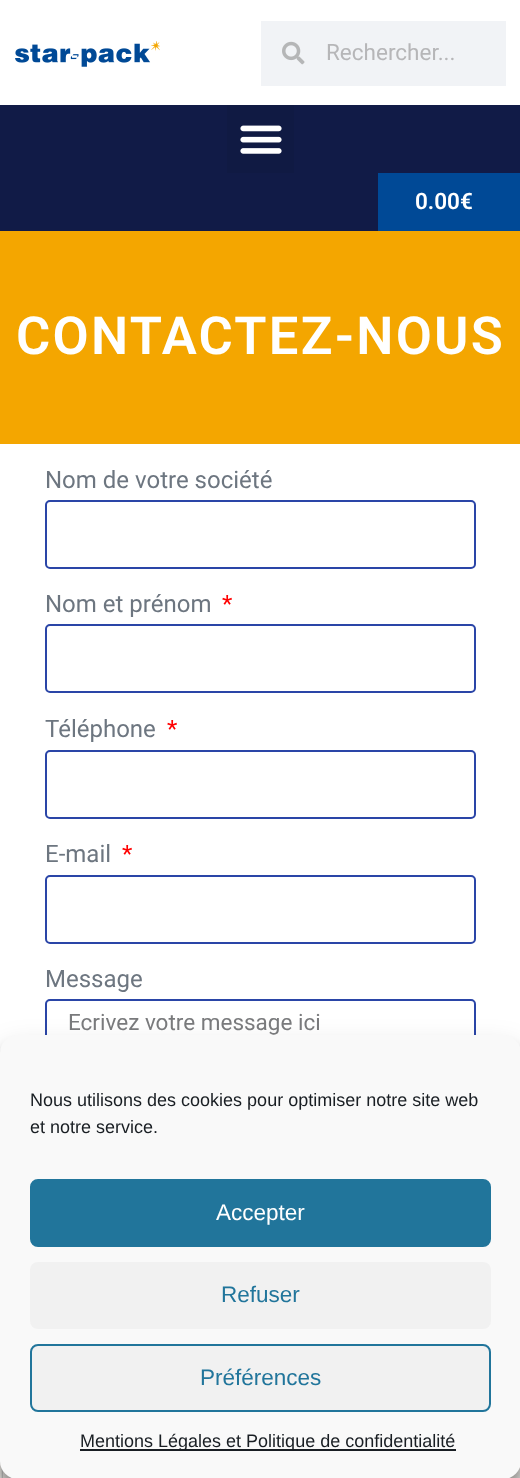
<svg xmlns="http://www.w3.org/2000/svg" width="520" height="1478">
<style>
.a{font:22.5px Roboto;fill:#b6b6b8}
.b{font:600 22.5px Roboto;fill:#fff}
.c{font:600 52.5px Roboto;letter-spacing:2.25px;fill:#fff}
.d{font:24px Roboto;fill:#6d7680}
.e{font:24px Roboto;fill:#f00}
.f{font:22.5px Roboto;fill:#797a7c}
.g{font:18px Liberation Sans;fill:#191e23}
.h{font:22.5px Liberation Sans;fill:#fff}
.i{font:22.5px Liberation Sans;fill:#21759b}
</style>
<rect width="100%" height="100%" fill="#fff"/>
<image href="1.png" x="15" y="41" width="145" height="26"/>
<path fill="#f1f3f6" d="M261 21h245v65H261z"/>
<image href="2.png" x="282" y="41" width="23" height="24"/>
<path fill="#111b47" d="M0 105h520v126H0z"/>
<path fill="#101a43" d="M227 105h67v68H227z"/>
<image href="3.png" x="240" y="125" width="42" height="29"/>
<path fill="#004996" d="M378 173h142v58H378z"/>
<path fill="#f4a600" d="M0 231h520v213H0z"/>
<rect fill="none" stroke="#2a45a7" stroke-width="2" x="46" y="501" width="429" height="67" rx="4"/>
<rect fill="none" stroke="#2a45a7" stroke-width="2" x="46" y="625" width="429" height="67" rx="4"/>
<rect fill="none" stroke="#2a45a7" stroke-width="2" x="46" y="751" width="429" height="67" rx="4"/>
<rect fill="none" stroke="#2a45a7" stroke-width="2" x="46" y="876" width="429" height="67" rx="4"/>
<rect fill="none" stroke="#2a45a7" stroke-width="2" x="46" y="1000" width="429" height="142" rx="4"/>
<image href="4.png" x="0" y="1461" width="520" height="17"/>
<rect fill="#0000003b" filter="blur(4.5px)" y="1044" width="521" height="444" rx="18"/>
<rect fill="#00000030" filter="blur(15px)" y="1050" width="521" height="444" rx="18"/>
<rect fill="#f9f9f9" y="1035" width="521" height="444" rx="18"/>
<rect fill="#21759b" stroke="#21759b" stroke-width="2" x="31" y="1180" width="459" height="66" rx="7"/>
<rect fill="#f1f1f1" x="30" y="1262" width="461" height="67" rx="8"/>
<rect fill="#f1f1f1" stroke="#21759b" stroke-width="2" x="31" y="1345" width="459" height="66" rx="7"/>
<path fill="#191e23" d="M80 1449h376v2H80z"/>
<text class="a" x="326" y="60">Rechercher...</text>
<text class="b" x="415" y="209">0.00€</text>
<text class="c" x="16" y="354">CONTACTEZ-NOUS</text>
<text class="d" x="45" y="488">Nom de votre société</text>
<text class="d" x="45" y="612">Nom et prénom</text>
<text class="e" x="222" y="612">*</text>
<text class="d" x="45" y="737">Téléphone</text>
<text class="e" x="167" y="737">*</text>
<text class="d" x="45" y="862">E-mail</text>
<text class="e" x="122" y="862">*</text>
<text class="d" x="45" y="987">Message</text>
<text class="f" x="68" y="1030">Ecrivez votre message ici</text>
<text class="g" x="30" y="1106">Nous utilisons des cookies pour optimiser notre site web</text>
<text class="g" x="30" y="1133">et notre service.</text>
<text class="h" x="216" y="1220">Accepter</text>
<text class="i" x="221" y="1302">Refuser</text>
<text class="i" x="200" y="1385">Préférences</text>
<text class="g" x="80" y="1447">Mentions Légales et Politique de confidentialité</text>
</svg>
